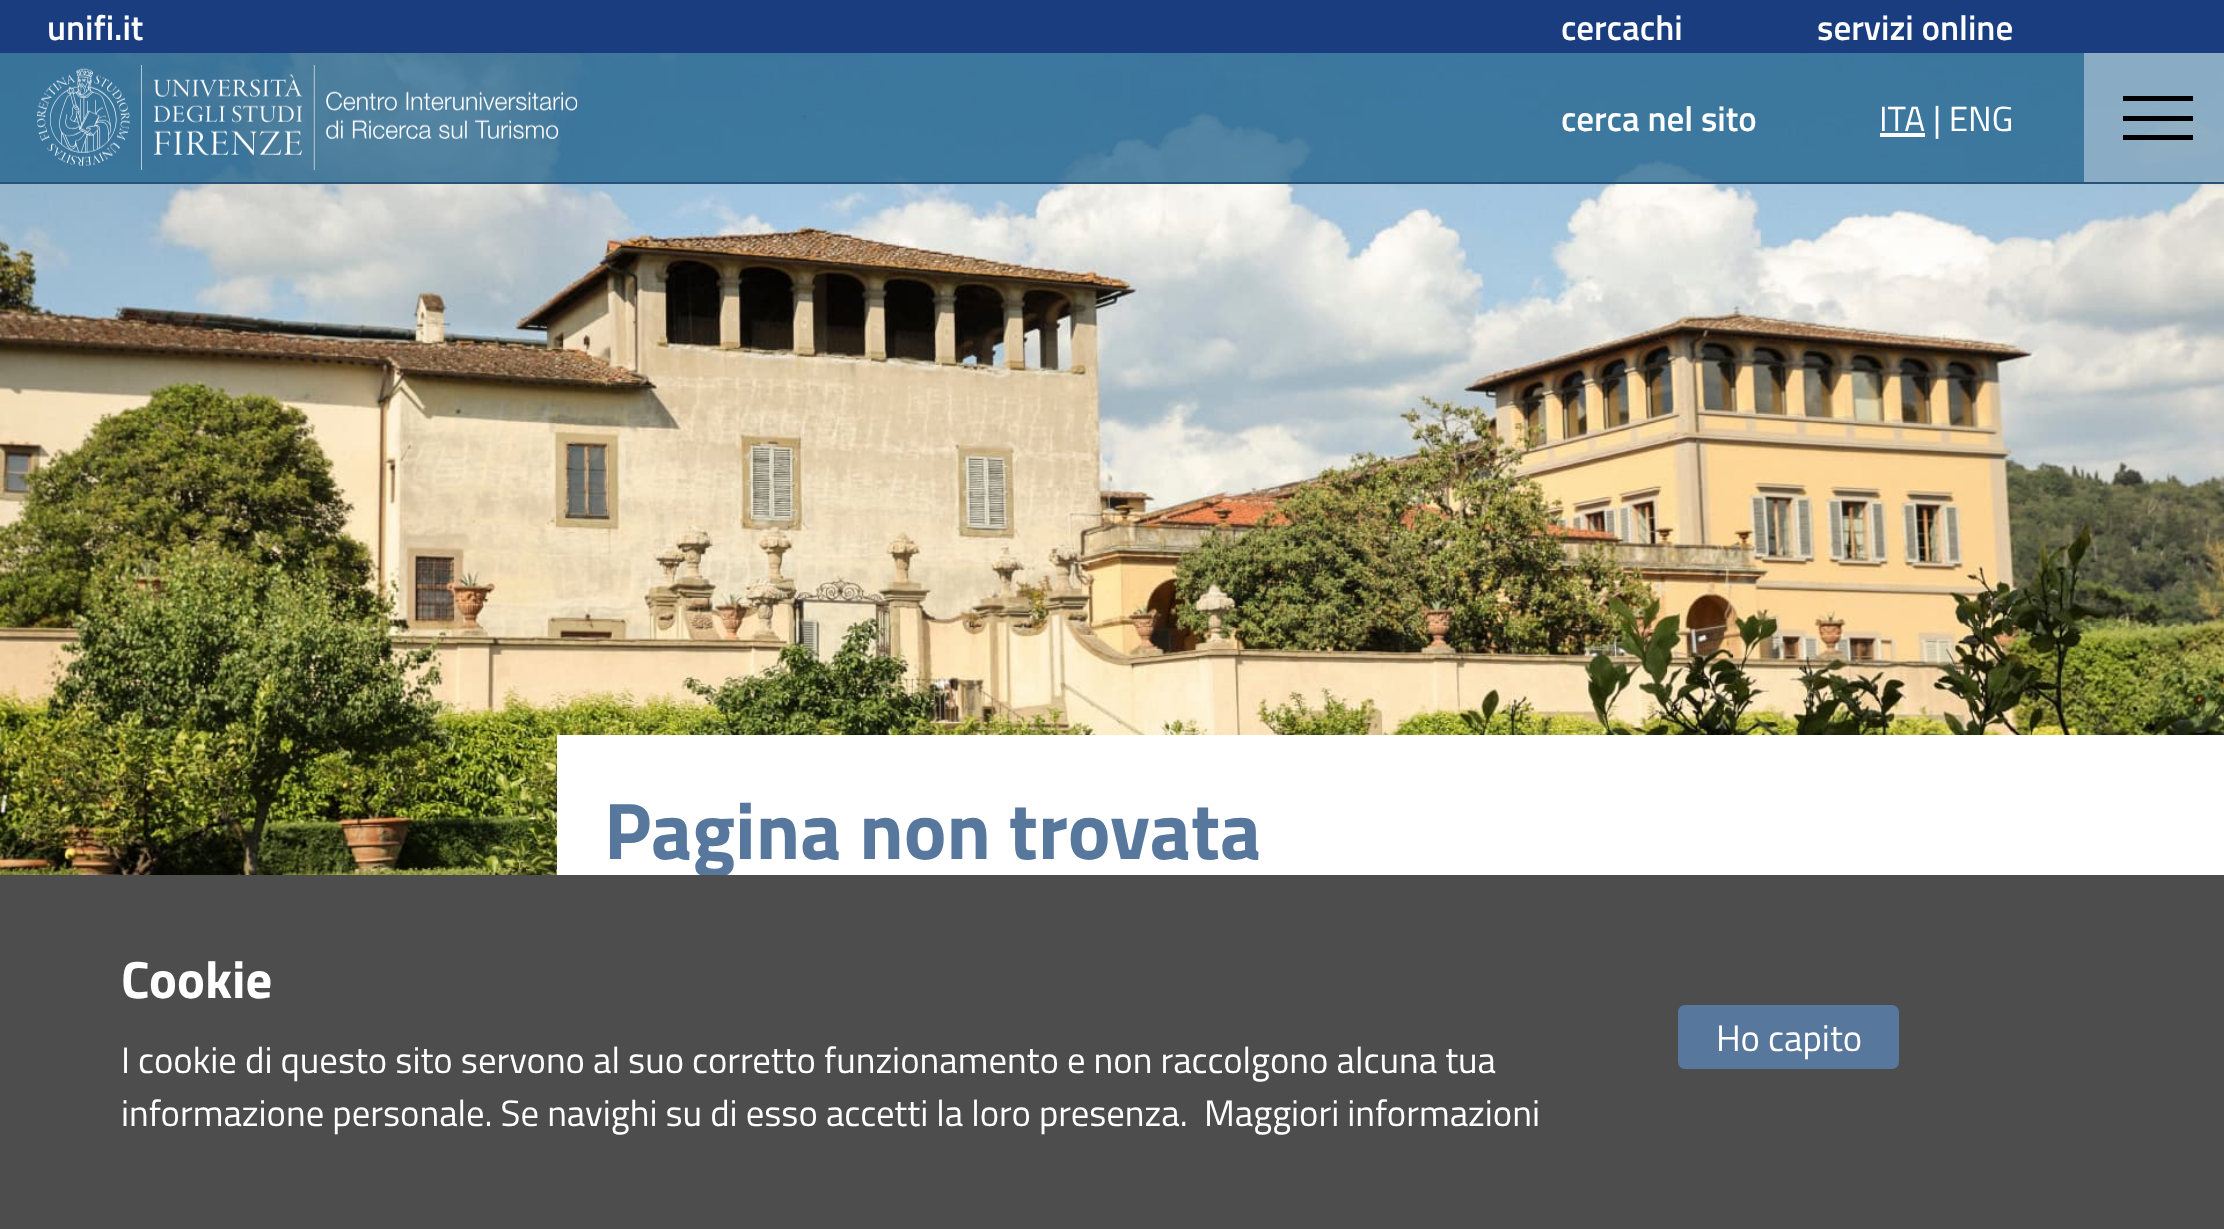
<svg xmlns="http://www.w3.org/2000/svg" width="2224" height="1229">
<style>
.a{font:600 35px Titillium Web;fill:#fff}
.b{font:35px Titillium Web;fill:#fff}
.c{font:bold 80.5px Titillium Web;fill:#58779d}
.d{font:bold 52.5px Titillium Web;fill:#fff}
.e{font:36.75px Titillium Web;fill:#fff}
</style>
<rect width="100%" height="100%" fill="#fff"/>
<image href="2.png" x="0" y="53" width="2224" height="822"/>
<path fill="#1c5f89bf" d="M0 53h2224v129H0z"/>
<path fill="#285277" d="M0 182h2224v2H0z"/>
<path fill="#1a3d7f" d="M0 0h2224v53H0z"/>
<image href="1.png" x="37" y="65" width="541" height="105"/>
<path fill="#fff" d="M1880 133h45v4H1880z"/>
<path fill="#ffffff66" d="M2084 53h140v129H2084z"/>
<path fill="#000" d="M2123 96h70v5H2123z"/>
<path fill="#000" d="M2123 116h70v5H2123z"/>
<path fill="#000" d="M2123 135h70v5H2123z"/>
<path fill="#fff" d="M557 735h1667v140H557z"/>
<text class="a" x="47" y="40">unifi.it</text>
<text class="a" x="1561" y="40">cercachi</text>
<text class="a" x="1817" y="40">servizi online</text>
<text class="a" x="1561" y="131">cerca nel sito</text>
<text class="b" x="1879" y="131">ITA | ENG</text>
<text class="c" x="604" y="859">Pagina non trovata</text>
<path fill="#4d4d4d" d="M0 875h2224v354H0z"/>
<text class="d" x="121" y="998">Cookie</text>
<text class="e" x="121" y="1073">I cookie di questo sito servono al suo corretto funzionamento e non raccolgono alcuna tua</text>
<text class="e" x="121" y="1126">informazione personale. Se navighi su di esso accetti la loro presenza.</text>
<text class="e" x="1204" y="1126">Maggiori informazioni</text>
<rect fill="#58779d" x="1678" y="1005" width="221" height="64" rx="7"/>
<text class="e" x="1716" y="1051">Ho capito</text>
</svg>
